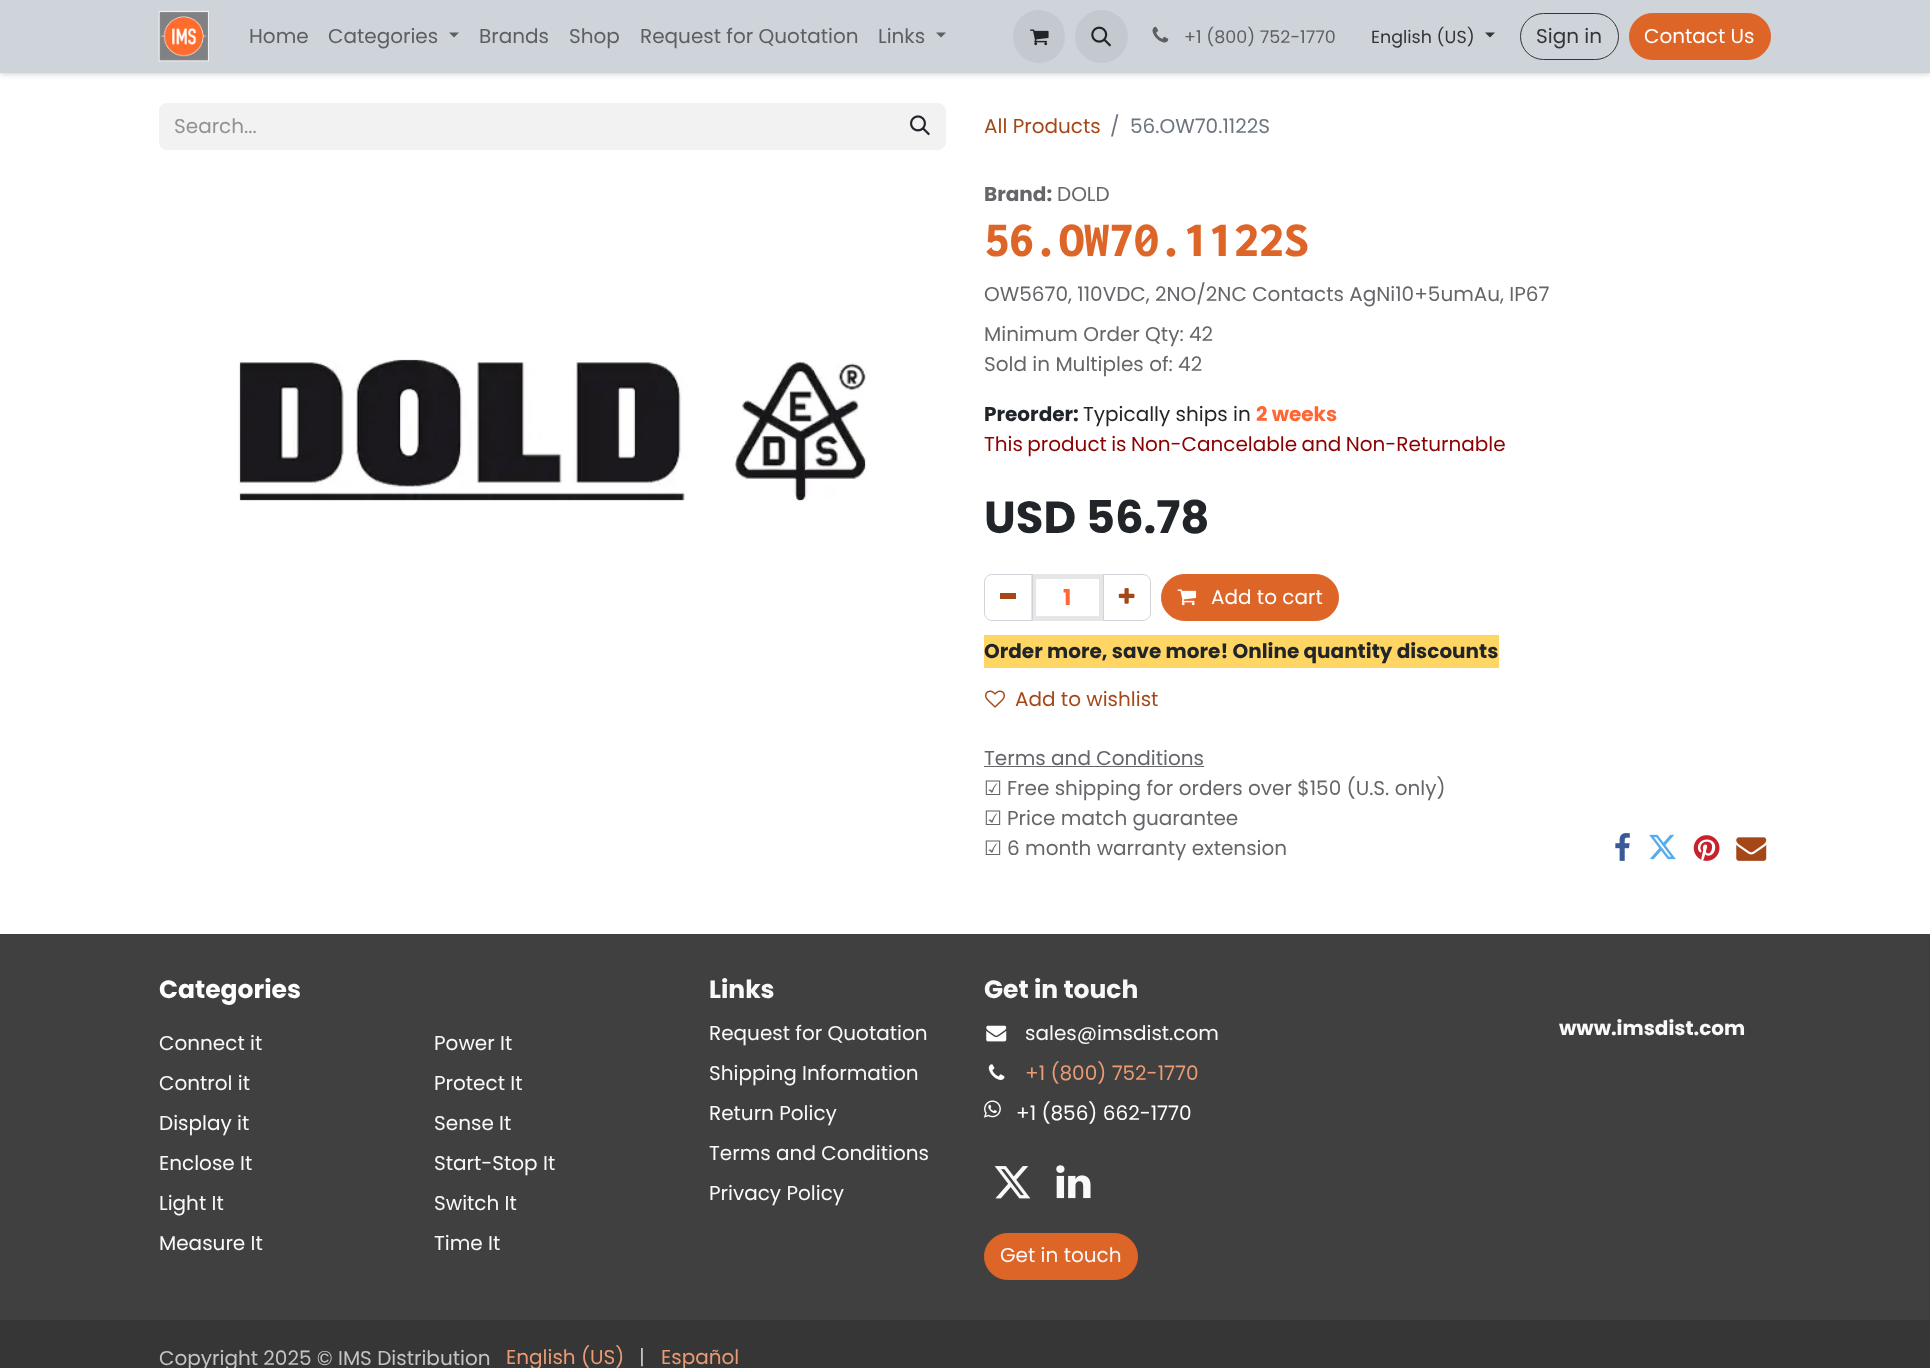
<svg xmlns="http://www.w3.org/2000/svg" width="1930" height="1368">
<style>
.a{font:20px Poppins;fill:#5d5f62}
.b{font:17.5px Poppins;fill:#5d5f62}
.c{font:17.5px Poppins;fill:#343537}
.d{font:20px Poppins;fill:#343537}
.e{font:20px Poppins;fill:#fff}
.f{font:20px Poppins;fill:#909294}
.g{font:20px Poppins;fill:#a54819}
.h{font:20px Poppins;fill:#6c757d}
.i{font:bold 20px Poppins;fill:#646669}
.j{font:20px Poppins;fill:#646669}
.k{font:900 50px Inconsolata;fill:#de6528}
.l{font:bold 20px Poppins;fill:#212529}
.m{font:20px Poppins;fill:#212529}
.n{font:bold 20px Poppins;fill:#f63}
.o{font:20px Poppins;fill:#8b0000}
.p{font:bold 45px Poppins;fill:#212529}
.q{font:bold 22px Poppins;fill:#f63}
.r{font:20px DejaVu Sans;fill:#646669}
.s{font:bold 25px Poppins;fill:#fff}
.t{font:20px Poppins;fill:#f8f9fa}
.u{font:bold 25px Poppins;fill:#f8f9fa}
.v{font:20px Poppins;fill:#ea9b73}
.w{font:bold 20px Poppins;fill:#f8f9fa}
.x{font:20px Poppins;fill:#c3c3c3}
</style>
<rect width="100%" height="100%" fill="#fff"/>
<path fill="#00000040" filter="blur(3px)" d="M0 0h1930v73H0z"/>
<path fill="#ced4da" d="M0 0h1930v73H0z"/>
<image href="1.png" x="158" y="11" width="51" height="51"/>
<path fill="#5d5f62" d="M449 32.5h10l-5 5z"/>
<path fill="#5d5f62" d="M936 32.5h10l-5 5z"/>
<rect fill="#c4c9cf" x="1013" y="10" width="52" height="53" rx="26"/>
<image href="2.png" x="1030" y="29" width="19" height="17"/>
<circle fill="#c4c9cf" cx="1101.5" cy="36.5" r="26.5"/>
<image href="3.png" x="1091" y="26" width="21" height="21"/>
<image href="4.png" x="1152" y="26" width="17" height="17"/>
<path fill="#343537" d="M1485 32.5h10l-5 5z"/>
<rect fill="none" stroke="#343537" x="1520.5" y="13.5" width="98" height="46" rx="23"/>
<rect fill="#de6528" stroke="#de6528" x="1629.5" y="13.5" width="141" height="46" rx="23"/>
<path fill="#f2f2f3" d="M167 103h728v47h-728c-4.5 0-8-3.5-8-8v-31c0-4.5 3.5-8 8-8z"/>
<path fill="#f2f2f3" stroke="#f2f2f3" d="M894.5 103.5h43.5c4 0 7.5 3.5 7.5 7.5v31c0 4-3.5 7.5-7.5 7.5h-43.5z"/>
<image href="5.png" x="910" y="115" width="20" height="21"/>
<image href="6.png" x="238" y="359" width="630" height="142"/>
<path fill="none" stroke="#e6e6e6" stroke-width="5" d="M1033.5 576.5h68v42H1033.5z"/>
<path fill="none" stroke="#ced4da" d="M992 574.5h40.5v46h-40.5c-4 0-7.5-3.5-7.5-7.5v-31c0-4 3.5-7.5 7.5-7.5z"/>
<path fill="#a54819" d="M1000 593h16v6H1000z"/>
<path fill="none" stroke="#ced4da" d="M1103.5 574.5h39.5c4 0 7.5 3.5 7.5 7.5v31c0 4-3.5 7.5-7.5 7.5h-39.5z"/>
<image href="7.png" x="1118" y="588" width="17" height="16"/>
<rect fill="#de6528" stroke="#de6528" x="1161.5" y="574.5" width="177" height="46" rx="23"/>
<image href="8.png" x="1177" y="589" width="20" height="17"/>
<path fill="#ffd663" d="M984 635h515v33H984z"/>
<image href="9.png" x="985" y="690" width="20" height="18"/>
<path fill="#646669" d="M984 766h220v1H984z"/>
<image href="10.png" x="1615" y="833" width="15" height="28"/>
<image href="11.png" x="1649" y="834" width="27" height="26"/>
<image href="12.png" x="1693" y="835" width="27" height="26"/>
<image href="13.png" x="1736" y="837" width="31" height="24"/>
<path fill="#404040" d="M0 934h1930v386H0z"/>
<image href="14.png" x="986" y="1025" width="21" height="17"/>
<image href="15.png" x="988" y="1064" width="17" height="16"/>
<image href="16.png" x="983" y="1100" width="18" height="18"/>
<image href="17.png" x="994" y="1166" width="37" height="33"/>
<image href="18.png" x="1056" y="1165" width="35" height="34"/>
<rect fill="#de6528" stroke="#de6528" x="984.5" y="1233.5" width="153" height="46" rx="23"/>
<path fill="#363636" d="M0 1320h1930v48H0z"/>
<text class="a" x="249" y="43">Home</text>
<text class="a" x="328" y="43">Categories</text>
<text class="a" x="479" y="43">Brands</text>
<text class="a" x="569" y="43">Shop</text>
<text class="a" x="640" y="43">Request for Quotation</text>
<text class="a" x="878" y="43">Links</text>
<text class="b" x="1184" y="43">+1 (800) 752-1770</text>
<text class="c" x="1371" y="43">English (US)</text>
<text class="d" x="1536" y="43">Sign in</text>
<text class="e" x="1644" y="43">Contact Us</text>
<text class="f" x="174" y="133">Search...</text>
<text class="g" x="984" y="133">All Products</text>
<text class="h" x="1110" y="133">/</text>
<text class="h" x="1130" y="133">56.OW70.1122S</text>
<text class="i" x="984" y="201">Brand:</text>
<text class="j" x="1057" y="201">DOLD</text>
<text class="k" x="984" y="256">56.OW70.1122S</text>
<text class="j" x="984" y="301">OW5670, 110VDC, 2NO/2NC Contacts AgNi10+5umAu, IP67</text>
<text class="j" x="984" y="341">Minimum Order Qty: 42</text>
<text class="j" x="984" y="371">Sold in Multiples of: 42</text>
<text class="l" x="984" y="421">Preorder:</text>
<text class="m" x="1083" y="421">Typically ships in</text>
<text class="n" x="1256" y="421">2 weeks</text>
<text class="o" x="984" y="451" word-spacing="-1">This product is Non-Cancelable and Non-Returnable</text>
<text class="p" x="984" y="533">USD 56.78</text>
<text class="q" x="1063" y="605">1</text>
<text class="e" x="1211" y="604">Add to cart</text>
<text class="l" x="984" y="658">Order more, save more! Online quantity discounts</text>
<text class="g" x="1015" y="706">Add to wishlist</text>
<text class="j" x="984" y="765">Terms and Conditions</text>
<text class="r" x="984" y="795">☑</text>
<text class="j" x="1007" y="795">Free shipping for orders over $150 (U.S. only)</text>
<text class="r" x="984" y="825">☑</text>
<text class="j" x="1007" y="825">Price match guarantee</text>
<text class="r" x="984" y="855">☑</text>
<text class="j" x="1007" y="855">6 month warranty extension</text>
<text class="s" x="159" y="998">Categories</text>
<text class="t" x="159" y="1050">Connect it</text>
<text class="t" x="159" y="1090">Control it</text>
<text class="t" x="159" y="1130">Display it</text>
<text class="t" x="159" y="1170">Enclose It</text>
<text class="t" x="159" y="1210">Light It</text>
<text class="t" x="159" y="1250">Measure It</text>
<text class="u" x="709" y="998">Links</text>
<text class="t" x="709" y="1040">Request for Quotation</text>
<text class="t" x="709" y="1080">Shipping Information</text>
<text class="t" x="709" y="1120">Return Policy</text>
<text class="t" x="709" y="1160">Terms and Conditions</text>
<text class="t" x="709" y="1200">Privacy Policy</text>
<text class="u" x="984" y="998">Get in touch</text>
<text class="t" x="1025" y="1040">sales@imsdist.com</text>
<text class="v" x="1025" y="1080">+1 (800) 752-1770</text>
<text class="e" x="1016" y="1120">+1 (856) 662-1770</text>
<text class="t" x="1000" y="1262">Get in touch</text>
<text class="w" x="1559" y="1035">www.imsdist.com</text>
<text class="t" x="434" y="1050">Power It</text>
<text class="t" x="434" y="1090">Protect It</text>
<text class="t" x="434" y="1130">Sense It</text>
<text class="t" x="434" y="1170">Start-Stop It</text>
<text class="t" x="434" y="1210">Switch It</text>
<text class="t" x="434" y="1250">Time It</text>
<text class="x" x="159" y="1365">Copyright 2025 © IMS Distribution</text>
<text class="v" x="506" y="1364">English (US)</text>
<text class="x" x="639" y="1364">|</text>
<text class="v" x="661" y="1364">Español</text>
</svg>
